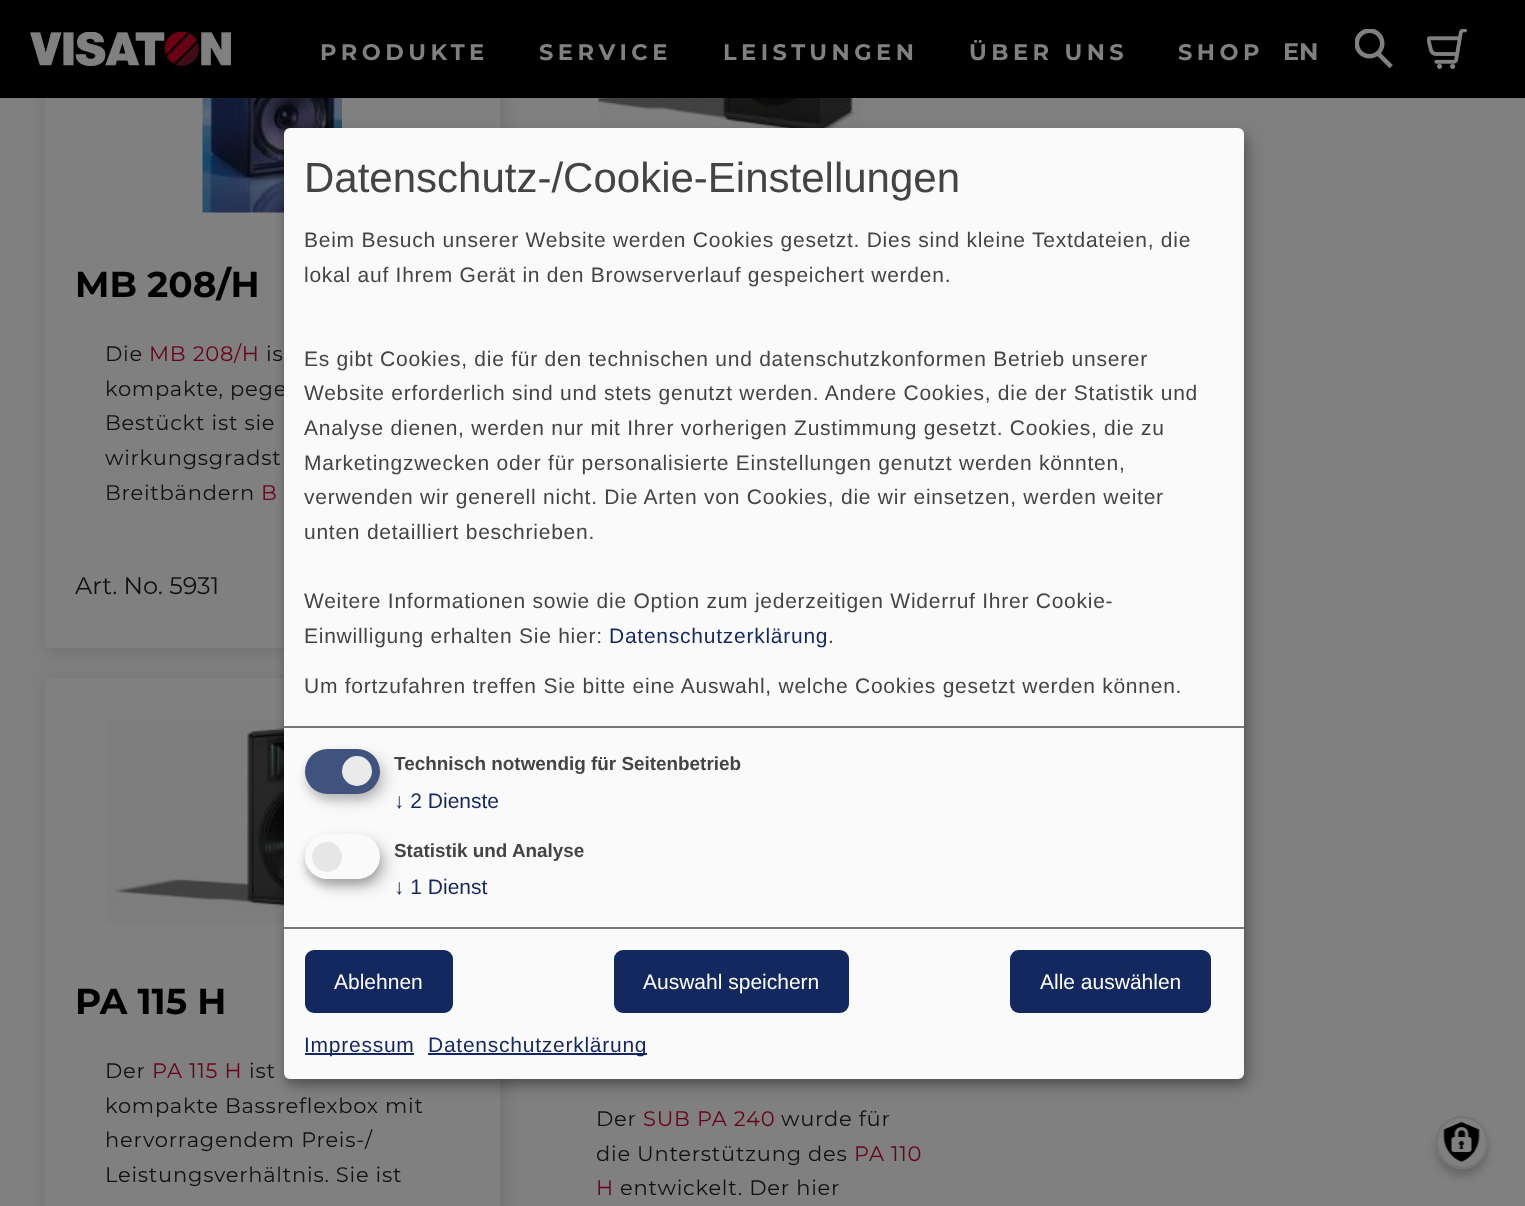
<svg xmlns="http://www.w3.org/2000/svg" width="1525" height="1206">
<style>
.a{font:bold 22.5px Montserrat;letter-spacing:4.5px;fill:#808080}
.b{font:bold 24px Montserrat;fill:#808080}
.c{font:bold 36px Montserrat;fill:#000}
.d{font:21px Montserrat;letter-spacing:0.75px;fill:#111}
.e{font:21px Montserrat;letter-spacing:0.75px;fill:#67021a}
.f{font:24px Montserrat;fill:#111}
.g{font:42px Liberation Sans;fill:#444}
.h{font:21px Liberation Sans;letter-spacing:0.75px;fill:#444}
.i{font:21px Liberation Sans;letter-spacing:0.75px;fill:#12285f}
.j{font:bold 18.9px Liberation Sans;fill:#444}
.k{font:21px Liberation Sans;fill:#12285f}
.l{font:21px Liberation Sans;fill:#fff}
</style>
<defs>
<linearGradient id="g1" gradientUnits="userSpaceOnUse" x1="302" y1="497" x2="302" y2="527"><stop offset="0" stop-color="#808080" stop-opacity="0"/><stop offset="1" stop-color="#808080"/></linearGradient>
<clipPath id="clip1"><path d="M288 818h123v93h-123zm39.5 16h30c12.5 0 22.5 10 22.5 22.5c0 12.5-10 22.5-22.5 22.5h-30c-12.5 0-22.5-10-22.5-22.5c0-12.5 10-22.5 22.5-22.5z" clip-rule="evenodd"/></clipPath>
<clipPath id="clip2"><path d="M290 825h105v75h-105zm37.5 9h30c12.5 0 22.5 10 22.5 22.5c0 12.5-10 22.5-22.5 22.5h-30c-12.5 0-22.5-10-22.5-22.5c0-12.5 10-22.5 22.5-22.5z" clip-rule="evenodd"/></clipPath>
</defs>
<rect width="100%" height="100%" fill="#808080"/>
<path fill="#0000001a" filter="blur(7.5px)" d="M45 -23h461v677H45z"/>
<path fill="#000" d="M0 0h1525v98H0z"/>
<image href="1.png" x="30" y="32" width="201" height="34"/>
<image href="2.png" x="1355" y="29" width="38" height="40"/>
<image href="3.png" x="1427" y="29" width="40" height="40"/>
<image href="4.png" x="598" y="98" width="265" height="30"/>
<path fill="#808080" d="M45 98h455v429H45z"/>
<image href="5.png" x="202" y="98" width="140" height="115"/>
<path fill="#808080" d="M45 527h239v121H45z"/>
<path fill="#0000001a" filter="blur(7.5px)" d="M45 678h461v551H45z"/>
<path fill="#808080" d="M45 678h455v528H45z"/>
<image href="6.png" x="106" y="719" width="178" height="205"/>
<rect fill="#00000033" filter="blur(4px)" x="1436" y="1124" width="52" height="52" rx="26"/>
<rect fill="#808080" x="1436" y="1116" width="52" height="53" rx="26"/>
<image href="7.png" x="1443" y="1122" width="37" height="40"/>
<rect fill="none" stroke="#757575" stroke-width="2" x="1437" y="1117" width="50" height="51" rx="25"/>
<text class="a" x="320" y="60">PRODUKTE</text>
<text class="a" x="539" y="60">SERVICE</text>
<text class="a" x="723" y="60">LEISTUNGEN</text>
<text class="a" x="969" y="60">ÜBER UNS</text>
<text class="a" x="1178" y="60">SHOP</text>
<text class="b" x="1283" y="60">EN</text>
<text class="c" x="75" y="297">MB 208/H</text>
<text class="d" x="105" y="361">Die</text>
<text class="e" x="149" y="361">MB 208/H</text>
<text class="d" x="266" y="361">is</text>
<text class="d" x="105" y="396">kompakte, pege</text>
<text class="d" x="105" y="430">Bestückt ist sie</text>
<text class="d" x="105" y="465">wirkungsgradst</text>
<text class="d" x="105" y="500">Breitbändern</text>
<text class="e" x="261" y="500">B</text>
<path fill="url(#g1)" d="M107 498h168v2H107z"/>
<text class="f" x="75" y="594">Art. No. 5931</text>
<text class="c" x="75" y="1014">PA 115 H</text>
<text class="d" x="105" y="1078">Der</text>
<text class="e" x="152" y="1078">PA 115 H</text>
<text class="d" x="249" y="1078">ist</text>
<text class="d" x="105" y="1113">kompakte Bassreflexbox mit</text>
<text class="d" x="105" y="1147">hervorragendem Preis-/</text>
<text class="d" x="105" y="1182">Leistungsverhältnis. Sie ist</text>
<text class="d" x="596" y="1126">Der</text>
<text class="e" x="643" y="1126">SUB PA 240</text>
<text class="d" x="781" y="1126">wurde für</text>
<text class="d" x="596" y="1161">die Unterstützung des</text>
<text class="e" x="854" y="1161">PA 110</text>
<text class="e" x="596" y="1195">H</text>
<text class="d" x="620" y="1195">entwickelt. Der hier</text>
<rect fill="#00000030" filter="blur(7.5px)" x="291" y="135" width="960" height="951" rx="6"/>
<rect fill="#00000033" filter="blur(4.5px)" x="284" y="134" width="960" height="951" rx="6"/>
<rect fill="#fafafa" x="284" y="128" width="960" height="951" rx="6"/>
<path fill="#777" d="M284 726h960v2H284z"/>
<text class="g" x="304" y="192">Datenschutz-/Cookie-Einstellungen</text>
<text class="h" x="304" y="247">Beim Besuch unserer Website werden Cookies gesetzt. Dies sind kleine Textdateien, die</text>
<text class="h" x="304" y="282">lokal auf Ihrem Gerät in den Browserverlauf gespeichert werden.</text>
<text class="h" x="304" y="366">Es gibt Cookies, die für den technischen und datenschutzkonformen Betrieb unserer</text>
<text class="h" x="304" y="400">Website erforderlich sind und stets genutzt werden. Andere Cookies, die der Statistik und</text>
<text class="h" x="304" y="435">Analyse dienen, werden nur mit Ihrer vorherigen Zustimmung gesetzt. Cookies, die zu</text>
<text class="h" x="304" y="470">Marketingzwecken oder für personalisierte Einstellungen genutzt werden könnten,</text>
<text class="h" x="304" y="504">verwenden wir generell nicht. Die Arten von Cookies, die wir einsetzen, werden weiter</text>
<text class="h" x="304" y="539">unten detailliert beschrieben.</text>
<text class="h" x="304" y="608">Weitere Informationen sowie die Option zum jederzeitigen Widerruf Ihrer Cookie-</text>
<text class="h" x="304" y="643">Einwilligung erhalten Sie hier:</text>
<text class="i" x="609" y="643">Datenschutzerklärung</text>
<text class="h" x="828" y="643">.</text>
<text class="h" x="304" y="693">Um fortzufahren treffen Sie bitte eine Auswahl, welche Cookies gesetzt werden können.</text>
<path fill="#12285f" d="M305 1053h109v2H305z"/>
<text class="i" x="304" y="1052">Impressum</text>
<path fill="#12285f" d="M428 1053h219v2H428z"/>
<text class="i" x="428" y="1052">Datenschutzerklärung</text>
<rect fill="#00000026" filter="blur(7.5px)" x="312" y="756" width="75" height="45" rx="22.5"/>
<rect fill="#32323233" filter="blur(4.5px)" x="305" y="755" width="75" height="45" rx="22.5"/>
<rect fill="#40527e" x="305" y="749" width="75" height="45" rx="22.5"/>
<circle fill="#eaeaea" cx="357" cy="771" r="15"/>
<text class="j" x="394" y="770">Technisch notwendig für Seitenbetrieb</text>
<text class="k" x="394" y="808">↓ 2 Dienste</text>
<g clip-path="url(#clip1)">
<rect fill="#00000030" filter="blur(7.5px)" x="312" y="842" width="75" height="45" rx="22.5"/>
</g>
<g clip-path="url(#clip2)">
<rect fill="#00000033" filter="blur(4.5px)" x="305" y="840" width="75" height="45" rx="22.5"/>
</g>
<circle fill="#e6e6e6" cx="327" cy="857" r="15"/>
<text class="j" x="394" y="857">Statistik und Analyse</text>
<text class="k" x="394" y="894">↓ 1 Dienst</text>
<path fill="#777" d="M284 927h960v2H284z"/>
<rect fill="#12285f" stroke="#12285f" stroke-width="5" x="307.5" y="952.5" width="143" height="58" rx="6.5"/>
<text class="l" x="334" y="989">Ablehnen</text>
<rect fill="#12285f" stroke="#12285f" stroke-width="5" x="616.5" y="952.5" width="230" height="58" rx="6.5"/>
<text class="l" x="643" y="989">Auswahl speichern</text>
<rect fill="#12285f" stroke="#12285f" stroke-width="5" x="1012.5" y="952.5" width="196" height="58" rx="6.5"/>
<text class="l" x="1040" y="989">Alle auswählen</text>
</svg>
